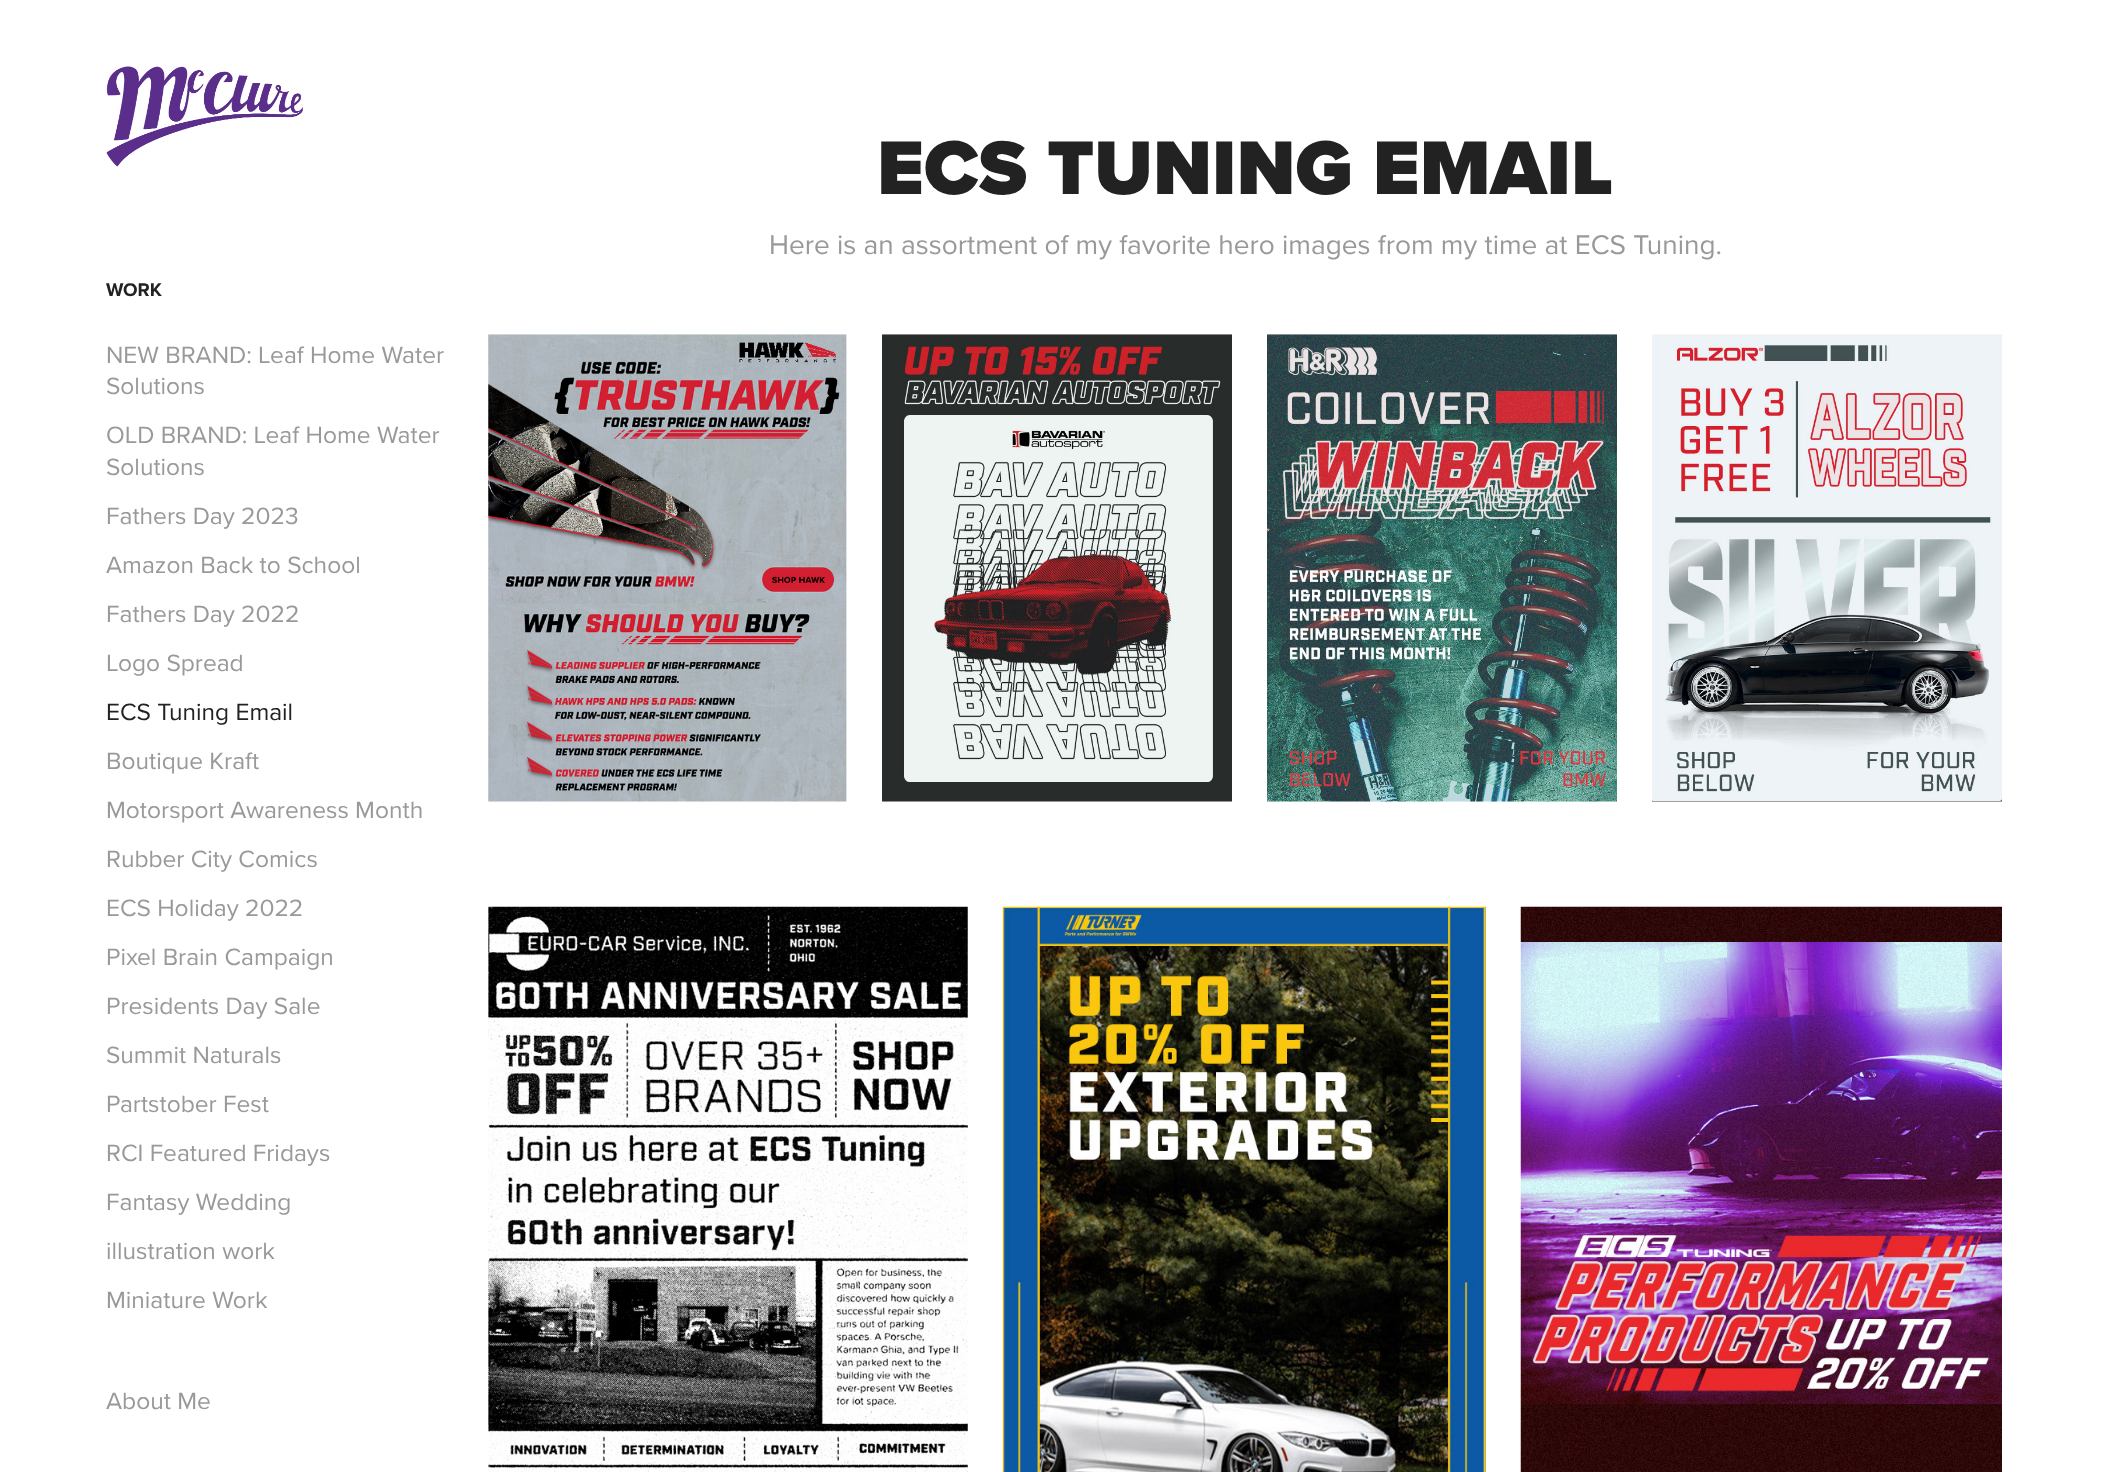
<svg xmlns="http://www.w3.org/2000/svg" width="2118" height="1472">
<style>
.a{font:900 78.75px Proxima Nova;fill:#222}
.b{font:28px Proxima Nova;fill:#999}
.c{font:bold 19px Proxima Nova;fill:#222}
.d{font:24.5px Proxima Nova;fill:#999}
.e{font:24.5px Proxima Nova;fill:#222}
</style>
<rect width="100%" height="100%" fill="#fff"/>
<image href="1.png" x="488" y="334" width="359" height="468"/>
<image href="2.png" x="882" y="334" width="350" height="468"/>
<image href="3.png" x="1267" y="334" width="350" height="468"/>
<image href="4.png" x="1652" y="334" width="350" height="468"/>
<image href="5.png" x="488" y="906" width="480" height="566"/>
<image href="6.png" x="1002" y="906" width="484" height="566"/>
<image href="7.png" x="1520" y="906" width="482" height="566"/>
<image href="8.png" x="106" y="66" width="197" height="101"/>
<text class="a" x="877" y="194">ECS TUNING EMAIL</text>
<text class="b" x="769" y="254">Here is an assortment of my favorite hero images from my time at ECS Tuning.</text>
<text class="c" x="106" y="296">WORK</text>
<text class="d" x="106" y="363">NEW BRAND: Leaf Home Water</text>
<text class="d" x="106" y="394">Solutions</text>
<text class="d" x="106" y="443">OLD BRAND: Leaf Home Water</text>
<text class="d" x="106" y="475">Solutions</text>
<text class="d" x="106" y="524">Fathers Day 2023</text>
<text class="d" x="106" y="573">Amazon Back to School</text>
<text class="d" x="106" y="622">Fathers Day 2022</text>
<text class="d" x="106" y="671">Logo Spread</text>
<text class="e" x="106" y="720">ECS Tuning Email</text>
<text class="d" x="106" y="769">Boutique Kraft</text>
<text class="d" x="106" y="818">Motorsport Awareness Month</text>
<text class="d" x="106" y="867">Rubber City Comics</text>
<text class="d" x="106" y="916">ECS Holiday 2022</text>
<text class="d" x="106" y="965">Pixel Brain Campaign</text>
<text class="d" x="106" y="1014">Presidents Day Sale</text>
<text class="d" x="106" y="1063">Summit Naturals</text>
<text class="d" x="106" y="1112">Partstober Fest</text>
<text class="d" x="106" y="1161">RCI Featured Fridays</text>
<text class="d" x="106" y="1210">Fantasy Wedding</text>
<text class="d" x="106" y="1259">illustration work</text>
<text class="d" x="106" y="1308">Miniature Work</text>
<text class="d" x="106" y="1409">About Me</text>
</svg>
